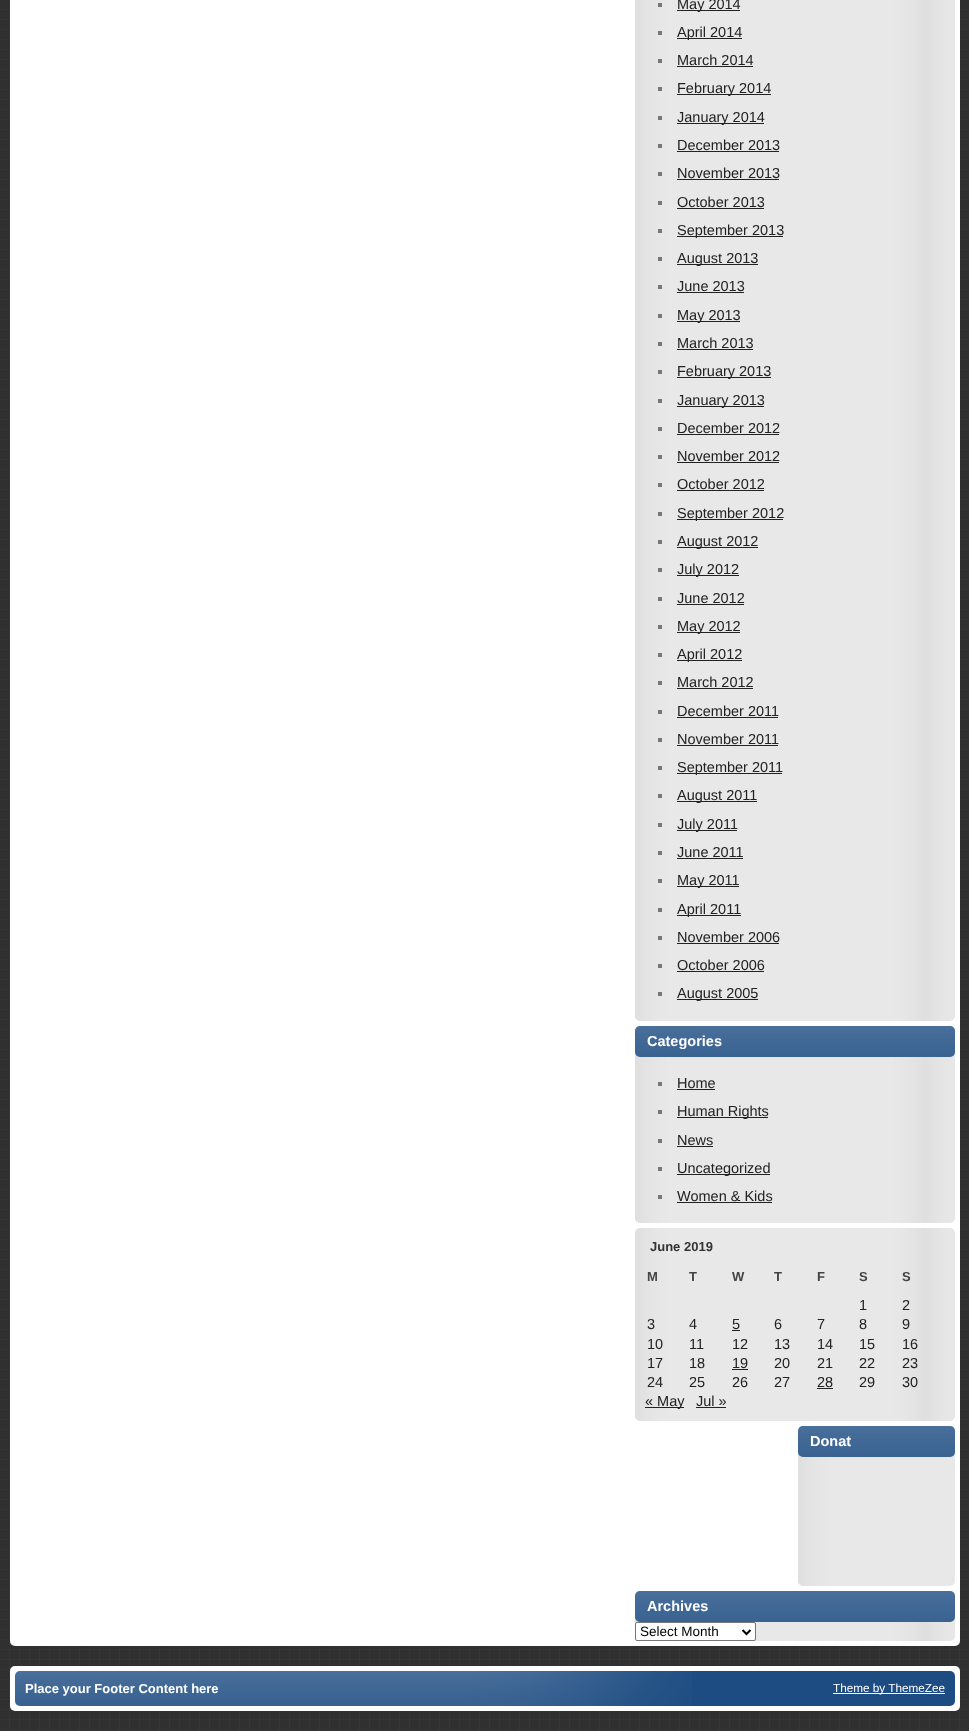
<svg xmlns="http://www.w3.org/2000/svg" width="969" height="1731">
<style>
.a{font:14.5px Liberation Sans;fill:#222}
.b{font:bold 14.5px Liberation Sans;fill:#fff}
.c{font:bold 13px Liberation Sans;fill:#333}
.d{font:bold 13px Liberation Sans;fill:#444}
.e{font:13.5px Liberation Sans;fill:#000}
.f{font:bold 13px Liberation Sans;fill:#fff}
.g{font:11.75px Liberation Sans;fill:#fff}
</style>
<rect width="100%" height="100%" fill="#fff"/>
<image href="1.png" x="0" y="0" width="969" height="1731"/>
<rect fill="#fff" x="10" y="-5" width="950" height="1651" rx="5"/>
<image href="2.png" x="635" y="0" width="320" height="1021"/>
<path fill="#777" d="M658 3h4v4H658z"/>
<path fill="#222" d="M677 10h63v1H677z"/>
<path fill="#777" d="M658 31h4v4H658z"/>
<path fill="#222" d="M677 38h65v1H677z"/>
<path fill="#777" d="M658 59h4v4H658z"/>
<path fill="#222" d="M677 66h76v1H677z"/>
<path fill="#777" d="M658 87h4v4H658z"/>
<path fill="#222" d="M677 94h94v1H677z"/>
<path fill="#777" d="M658 116h4v4H658z"/>
<path fill="#222" d="M677 123h87v1H677z"/>
<path fill="#777" d="M658 144h4v4H658z"/>
<path fill="#222" d="M677 151h102v1H677z"/>
<path fill="#777" d="M658 172h4v4H658z"/>
<path fill="#222" d="M677 179h102v1H677z"/>
<path fill="#777" d="M658 201h4v4H658z"/>
<path fill="#222" d="M677 208h87v1H677z"/>
<path fill="#777" d="M658 229h4v4H658z"/>
<path fill="#222" d="M677 236h106v1H677z"/>
<path fill="#777" d="M658 257h4v4H658z"/>
<path fill="#222" d="M677 264h81v1H677z"/>
<path fill="#777" d="M658 285h4v4H658z"/>
<path fill="#222" d="M677 292h67v1H677z"/>
<path fill="#777" d="M658 314h4v4H658z"/>
<path fill="#222" d="M677 321h63v1H677z"/>
<path fill="#777" d="M658 342h4v4H658z"/>
<path fill="#222" d="M677 349h76v1H677z"/>
<path fill="#777" d="M658 370h4v4H658z"/>
<path fill="#222" d="M677 377h94v1H677z"/>
<path fill="#777" d="M658 399h4v4H658z"/>
<path fill="#222" d="M677 406h87v1H677z"/>
<path fill="#777" d="M658 427h4v4H658z"/>
<path fill="#222" d="M677 434h102v1H677z"/>
<path fill="#777" d="M658 455h4v4H658z"/>
<path fill="#222" d="M677 462h102v1H677z"/>
<path fill="#777" d="M658 483h4v4H658z"/>
<path fill="#222" d="M677 490h87v1H677z"/>
<path fill="#777" d="M658 512h4v4H658z"/>
<path fill="#222" d="M677 519h106v1H677z"/>
<path fill="#777" d="M658 540h4v4H658z"/>
<path fill="#222" d="M677 547h81v1H677z"/>
<path fill="#777" d="M658 568h4v4H658z"/>
<path fill="#222" d="M677 575h62v1H677z"/>
<path fill="#777" d="M658 597h4v4H658z"/>
<path fill="#222" d="M677 604h67v1H677z"/>
<path fill="#777" d="M658 625h4v4H658z"/>
<path fill="#222" d="M677 632h63v1H677z"/>
<path fill="#777" d="M658 653h4v4H658z"/>
<path fill="#222" d="M677 660h65v1H677z"/>
<path fill="#777" d="M658 681h4v4H658z"/>
<path fill="#222" d="M677 688h76v1H677z"/>
<path fill="#777" d="M658 710h4v4H658z"/>
<path fill="#222" d="M677 717h101v1H677z"/>
<path fill="#777" d="M658 738h4v4H658z"/>
<path fill="#222" d="M677 745h101v1H677z"/>
<path fill="#777" d="M658 766h4v4H658z"/>
<path fill="#222" d="M677 773h105v1H677z"/>
<path fill="#777" d="M658 794h4v4H658z"/>
<path fill="#222" d="M677 801h80v1H677z"/>
<path fill="#777" d="M658 823h4v4H658z"/>
<path fill="#222" d="M677 830h60v1H677z"/>
<path fill="#777" d="M658 851h4v4H658z"/>
<path fill="#222" d="M677 858h66v1H677z"/>
<path fill="#777" d="M658 879h4v4H658z"/>
<path fill="#222" d="M677 886h62v1H677z"/>
<path fill="#777" d="M658 908h4v4H658z"/>
<path fill="#222" d="M677 915h64v1H677z"/>
<path fill="#777" d="M658 936h4v4H658z"/>
<path fill="#222" d="M677 943h102v1H677z"/>
<path fill="#777" d="M658 964h4v4H658z"/>
<path fill="#222" d="M677 971h87v1H677z"/>
<path fill="#777" d="M658 992h4v4H658z"/>
<path fill="#222" d="M677 999h81v1H677z"/>
<image href="3.png" x="635" y="1026" width="320" height="197"/>
<rect fill="#1d4c82" x="635" y="1026" width="320" height="31" rx="5"/>
<image href="4.png" x="635" y="1026" width="320" height="31"/>
<path fill="#777" d="M658 1082h4v4H658z"/>
<path fill="#222" d="M677 1089h38v1H677z"/>
<path fill="#777" d="M658 1110h4v4H658z"/>
<path fill="#222" d="M677 1117h91v1H677z"/>
<path fill="#777" d="M658 1139h4v4H658z"/>
<path fill="#222" d="M677 1146h36v1H677z"/>
<path fill="#777" d="M658 1167h4v4H658z"/>
<path fill="#222" d="M677 1174h93v1H677z"/>
<path fill="#777" d="M658 1195h4v4H658z"/>
<path fill="#222" d="M677 1202h95v1H677z"/>
<image href="5.png" x="635" y="1228" width="320" height="193"/>
<path fill="#222" d="M732 1330h8v1H732z"/>
<path fill="#222" d="M732 1369h16v1H732z"/>
<path fill="#222" d="M817 1388h16v1H817z"/>
<path fill="#222" d="M645 1407h39v1H645z"/>
<path fill="#222" d="M696 1407h30v1H696z"/>
<image href="6.png" x="798" y="1426" width="157" height="160"/>
<rect fill="#1d4c82" x="798" y="1426" width="157" height="31" rx="5"/>
<image href="7.png" x="798" y="1426" width="157" height="31"/>
<image href="8.png" x="635" y="1591" width="320" height="50"/>
<rect fill="#1d4c82" x="635" y="1591" width="320" height="31" rx="5"/>
<image href="4.png" x="635" y="1591" width="320" height="31"/>
<rect fill="#fff" stroke="#767676" x="635.5" y="1622.5" width="120" height="18" rx="1.5"/>
<path fill="none" stroke="#000" stroke-width="2" d="M742.5 1630l4 4l4-4"/>
<rect fill="#fff" x="10" y="1666" width="950" height="45" rx="5"/>
<rect fill="#1d4c82" x="15" y="1671" width="940" height="35" rx="5"/>
<image href="9.png" x="15" y="1671" width="677" height="35"/>
<path fill="#fff" d="M833 1693h112v1H833z"/>
<text class="a" x="677" y="9">May 2014</text>
<text class="a" x="677" y="37">April 2014</text>
<text class="a" x="677" y="65">March 2014</text>
<text class="a" x="677" y="93">February 2014</text>
<text class="a" x="677" y="122">January 2014</text>
<text class="a" x="677" y="150">December 2013</text>
<text class="a" x="677" y="178">November 2013</text>
<text class="a" x="677" y="207">October 2013</text>
<text class="a" x="677" y="235">September 2013</text>
<text class="a" x="677" y="263">August 2013</text>
<text class="a" x="677" y="291">June 2013</text>
<text class="a" x="677" y="320">May 2013</text>
<text class="a" x="677" y="348">March 2013</text>
<text class="a" x="677" y="376">February 2013</text>
<text class="a" x="677" y="405">January 2013</text>
<text class="a" x="677" y="433">December 2012</text>
<text class="a" x="677" y="461">November 2012</text>
<text class="a" x="677" y="489">October 2012</text>
<text class="a" x="677" y="518">September 2012</text>
<text class="a" x="677" y="546">August 2012</text>
<text class="a" x="677" y="574">July 2012</text>
<text class="a" x="677" y="603">June 2012</text>
<text class="a" x="677" y="631">May 2012</text>
<text class="a" x="677" y="659">April 2012</text>
<text class="a" x="677" y="687">March 2012</text>
<text class="a" x="677" y="716">December 2011</text>
<text class="a" x="677" y="744">November 2011</text>
<text class="a" x="677" y="772">September 2011</text>
<text class="a" x="677" y="800">August 2011</text>
<text class="a" x="677" y="829">July 2011</text>
<text class="a" x="677" y="857">June 2011</text>
<text class="a" x="677" y="885">May 2011</text>
<text class="a" x="677" y="914">April 2011</text>
<text class="a" x="677" y="942">November 2006</text>
<text class="a" x="677" y="970">October 2006</text>
<text class="a" x="677" y="998">August 2005</text>
<text class="b" x="647" y="1046">Categories</text>
<text class="a" x="677" y="1088">Home</text>
<text class="a" x="677" y="1116">Human Rights</text>
<text class="a" x="677" y="1145">News</text>
<text class="a" x="677" y="1173">Uncategorized</text>
<text class="a" x="677" y="1201">Women &amp; Kids</text>
<text class="c" x="650" y="1251">June 2019</text>
<text class="d" x="647" y="1281">M</text>
<text class="d" x="689" y="1281">T</text>
<text class="d" x="732" y="1281">W</text>
<text class="d" x="774" y="1281">T</text>
<text class="d" x="817" y="1281">F</text>
<text class="d" x="859" y="1281">S</text>
<text class="d" x="902" y="1281">S</text>
<text class="a" x="859" y="1310">1</text>
<text class="a" x="902" y="1310">2</text>
<text class="a" x="647" y="1329">3</text>
<text class="a" x="689" y="1329">4</text>
<text class="a" x="732" y="1329">5</text>
<text class="a" x="774" y="1329">6</text>
<text class="a" x="817" y="1329">7</text>
<text class="a" x="859" y="1329">8</text>
<text class="a" x="902" y="1329">9</text>
<text class="a" x="647" y="1349">10</text>
<text class="a" x="689" y="1349">11</text>
<text class="a" x="732" y="1349">12</text>
<text class="a" x="774" y="1349">13</text>
<text class="a" x="817" y="1349">14</text>
<text class="a" x="859" y="1349">15</text>
<text class="a" x="902" y="1349">16</text>
<text class="a" x="647" y="1368">17</text>
<text class="a" x="689" y="1368">18</text>
<text class="a" x="732" y="1368">19</text>
<text class="a" x="774" y="1368">20</text>
<text class="a" x="817" y="1368">21</text>
<text class="a" x="859" y="1368">22</text>
<text class="a" x="902" y="1368">23</text>
<text class="a" x="647" y="1387">24</text>
<text class="a" x="689" y="1387">25</text>
<text class="a" x="732" y="1387">26</text>
<text class="a" x="774" y="1387">27</text>
<text class="a" x="817" y="1387">28</text>
<text class="a" x="859" y="1387">29</text>
<text class="a" x="902" y="1387">30</text>
<text class="a" x="645" y="1406">« May</text>
<text class="a" x="696" y="1406">Jul »</text>
<text class="b" x="810" y="1446">Donat</text>
<text class="b" x="647" y="1611">Archives</text>
<text class="e" x="640" y="1636">Select Month</text>
<text class="f" x="25" y="1693">Place your Footer Content here</text>
<text class="g" x="833" y="1692">Theme by ThemeZee</text>
</svg>
